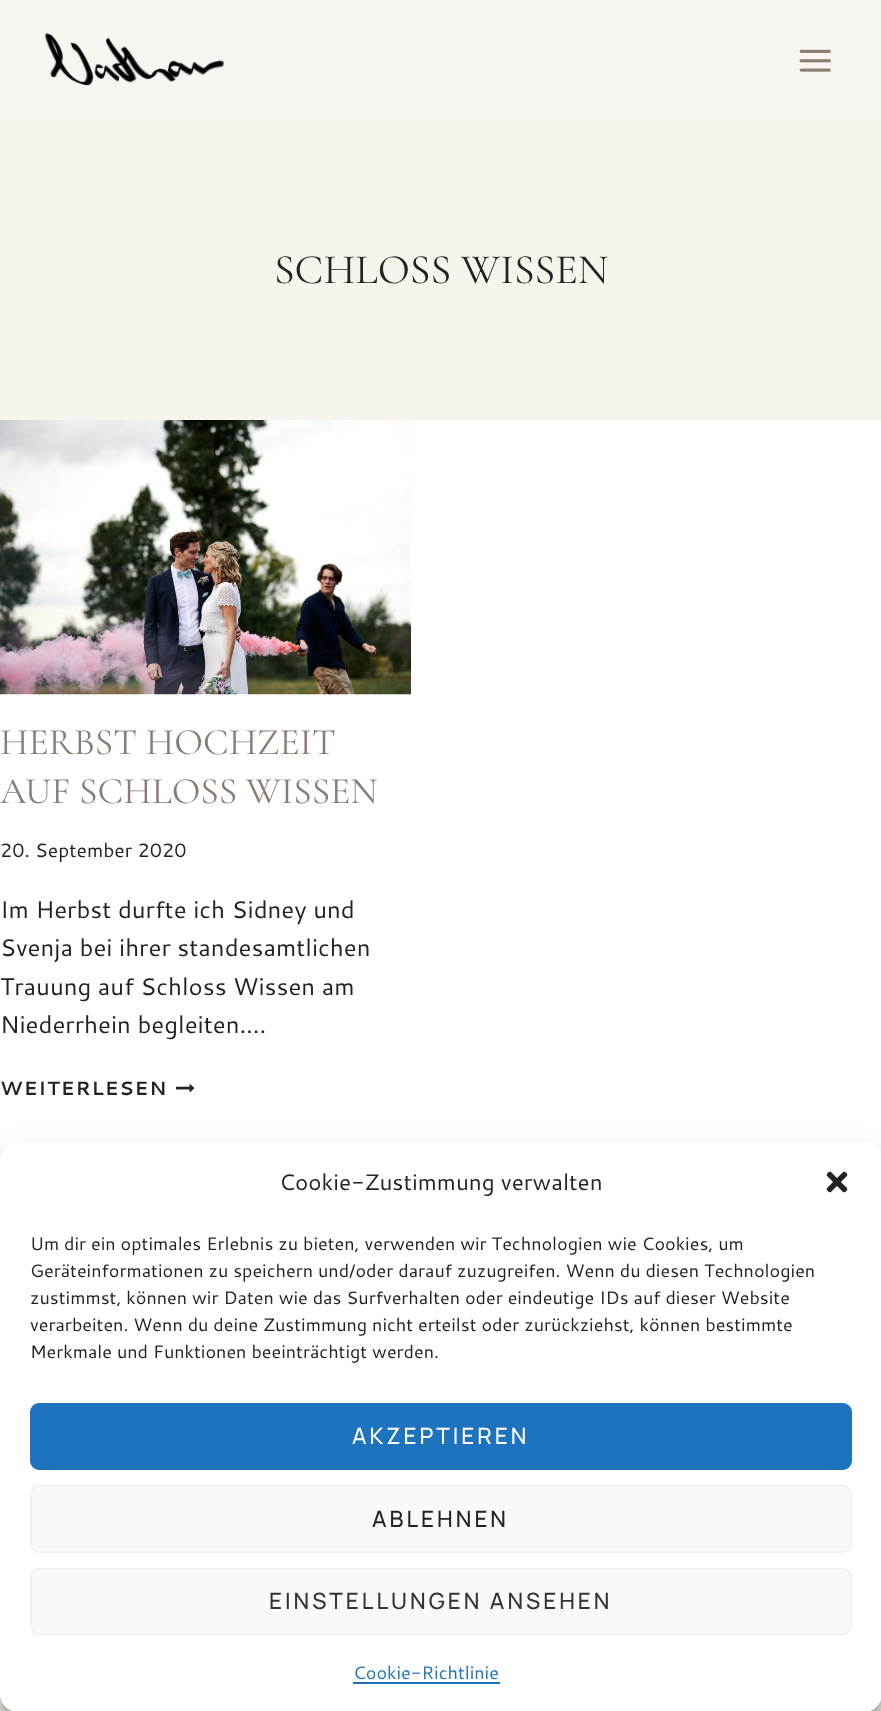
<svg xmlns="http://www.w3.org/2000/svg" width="881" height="1711">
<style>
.a{font:42px Cormorant Garamond;fill:#232323}
.b{font:37.5px Cormorant Garamond;fill:#887c73}
.c{font:19.25px Cantarell;fill:#232323}
.d{font:24px Cantarell;fill:#232323}
.e{font:bold 19.25px Cantarell;letter-spacing:1px;fill:#232323}
.f{font:22.5px Cantarell;fill:#232323}
.g{font:18px Cantarell;fill:#232323}
.h{font:500 22.5px Manrope;letter-spacing:3px;fill:#fff}
.i{font:500 22.5px Manrope;letter-spacing:3px;fill:#232323}
.j{font:500 22.5px Manrope;letter-spacing:3px;fill:#333}
.k{font:18px Cantarell;fill:#1e73be}
</style>
<rect width="100%" height="100%" fill="#fff"/>
<path fill="#f8f5f0" d="M0 0h881v120H0z"/>
<image href="1.png" x="44" y="33" width="180" height="53"/>
<image href="2.png" x="799" y="49" width="32" height="23"/>
<path fill="#f6f4ed" d="M0 120h881v300H0z"/>
<image href="3.png" x="0" y="420" width="411" height="275"/>
<image href="4.png" x="176" y="1084" width="19" height="9"/>
<path fill="#f8f5f0" d="M0 1694h881v17H0z"/>
<rect fill="#0000003b" filter="blur(4.5px)" y="1151" width="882" height="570" rx="18"/>
<rect fill="#00000030" filter="blur(15px)" y="1157" width="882" height="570" rx="18"/>
<rect fill="#fff" y="1142" width="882" height="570" rx="18"/>
<image href="5.png" x="826" y="1171" width="22" height="22"/>
<rect fill="#1e73be" stroke="#1e73be" stroke-width="2" x="31" y="1404" width="820" height="65" rx="8"/>
<rect fill="#f9f9f9" stroke="#f2f2f2" stroke-width="2" x="31" y="1486" width="820" height="66" rx="8"/>
<rect fill="#f9f9f9" stroke="#f2f2f2" stroke-width="2" x="31" y="1569" width="820" height="65" rx="8"/>
<path fill="#1e73be" d="M353 1682h147v2H353z"/>
<text class="a" x="274" y="283">SCHLOSS WISSEN</text>
<text class="b" x="0" y="754">HERBST HOCHZEIT</text>
<text class="b" x="0" y="803">AUF SCHLOSS WISSEN</text>
<text class="c" x="0" y="857">20. September 2020</text>
<text class="d" x="0" y="918">Im Herbst durfte ich Sidney und</text>
<text class="d" x="0" y="956">Svenja bei ihrer standesamtlichen</text>
<text class="d" x="0" y="995">Trauung auf Schloss Wissen am</text>
<text class="d" x="0" y="1033">Niederrhein begleiten….</text>
<text class="e" x="0" y="1095">WEITERLESEN</text>
<text class="f" x="279" y="1190">Cookie-Zustimmung verwalten</text>
<text class="g" x="30" y="1250">Um dir ein optimales Erlebnis zu bieten, verwenden wir Technologien wie Cookies, um</text>
<text class="g" x="30" y="1277">Geräteinformationen zu speichern und/oder darauf zuzugreifen. Wenn du diesen Technologien</text>
<text class="g" x="30" y="1304">zustimmst, können wir Daten wie das Surfverhalten oder eindeutige IDs auf dieser Website</text>
<text class="g" x="30" y="1331">verarbeiten. Wenn du deine Zustimmung nicht erteilst oder zurückziehst, können bestimmte</text>
<text class="g" x="30" y="1358">Merkmale und Funktionen beeinträchtigt werden.</text>
<text class="h" x="352" y="1444">AKZEPTIEREN</text>
<text class="i" x="372" y="1527">ABLEHNEN</text>
<text class="j" x="269" y="1609">EINSTELLUNGEN ANSEHEN</text>
<text class="k" x="353" y="1679">Cookie-Richtlinie</text>
</svg>
